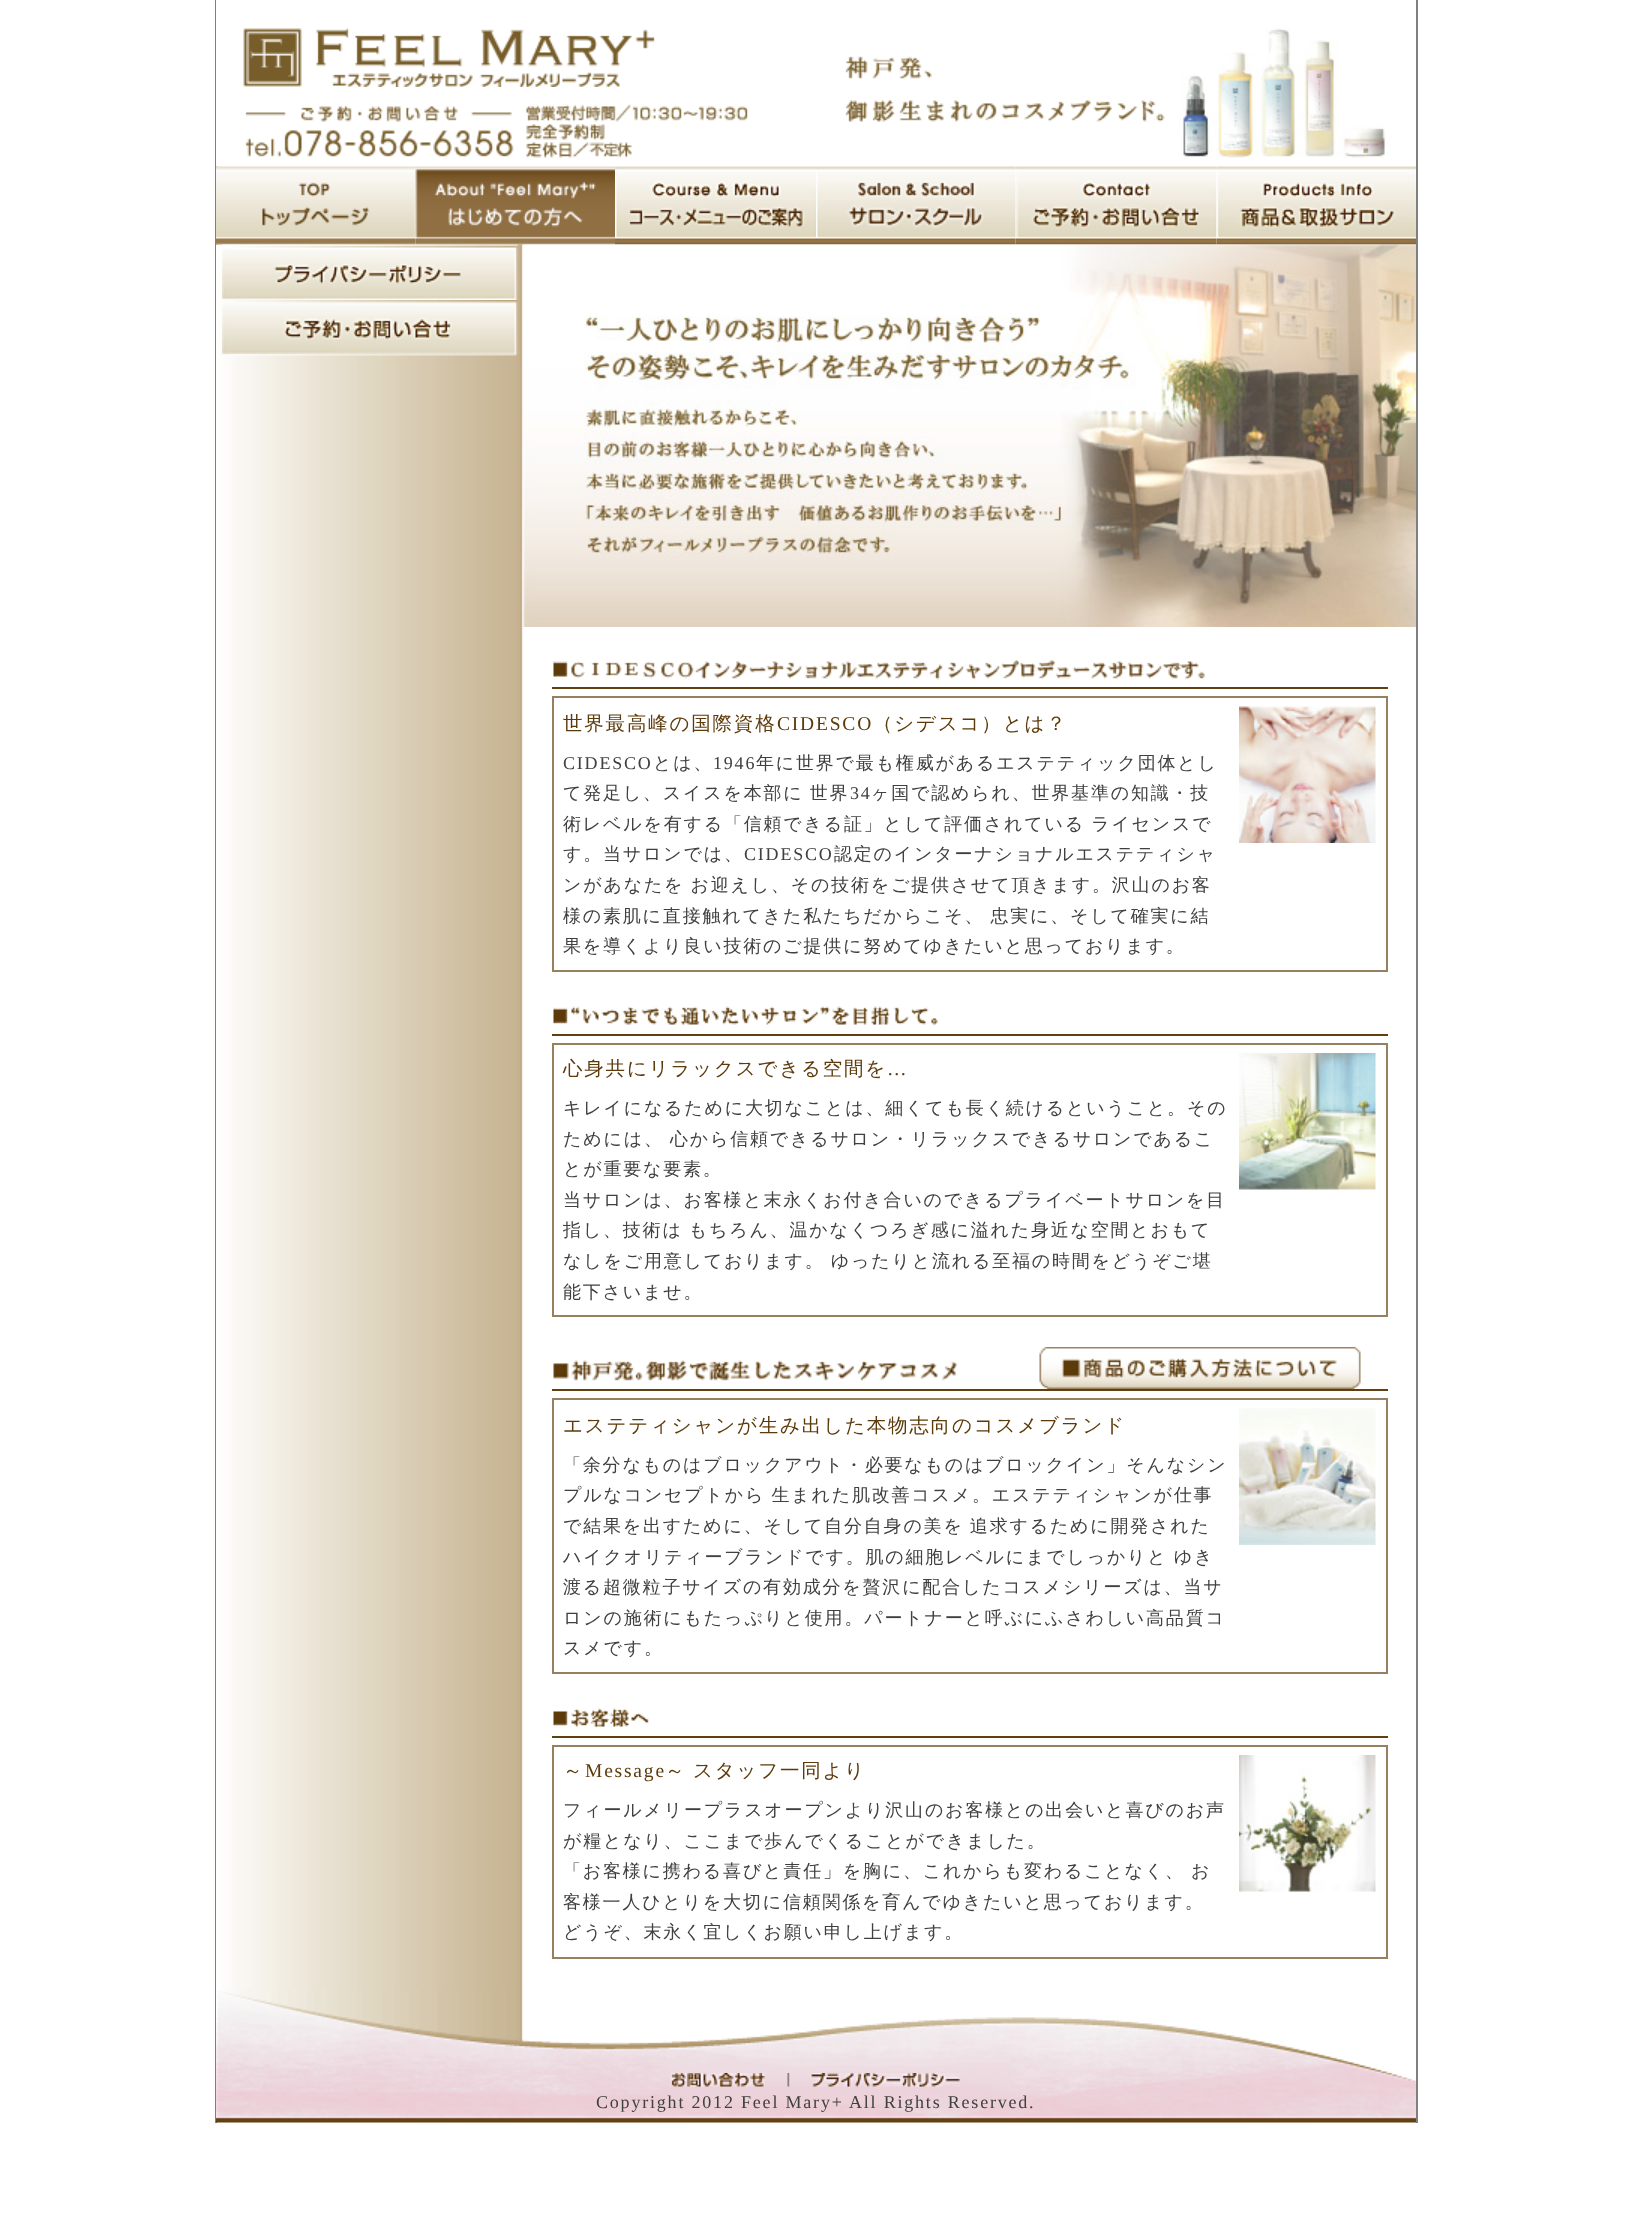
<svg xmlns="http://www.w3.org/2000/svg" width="1630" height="2221">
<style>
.a{font:500 19.5px WenQuanYi Zen Hei;letter-spacing:1.8px;fill:#5c3a0a}
.b{font:19.5px Liberation Serif;letter-spacing:1.8px;fill:#5c3a0a}
.c{font:18px Liberation Serif;letter-spacing:1.8px;fill:#404040}
.d{font:500 18px WenQuanYi Zen Hei;letter-spacing:1.8px;fill:#404040}
</style>
<rect width="100%" height="100%" fill="#fff"/>
<path fill="#7f7f7f" d="M1416 0h2v2123H1416z"/>
<path fill="#7f7f7f" d="M215 0h2v2123H215z"/>
<image href="1.png" x="216" y="0" width="949" height="167"/>
<image href="2.png" x="243" y="28" width="412" height="59"/>
<image href="3.png" x="1182" y="28" width="204" height="130"/>
<image href="10.png" x="216" y="244" width="307" height="1745"/>
<image href="4.png" x="216" y="166" width="200" height="79"/>
<image href="5.png" x="415" y="166" width="200" height="79"/>
<image href="6.png" x="615" y="166" width="201" height="79"/>
<image href="7.png" x="816" y="166" width="200" height="79"/>
<image href="8.png" x="1015" y="166" width="202" height="79"/>
<image href="9.png" x="1216" y="166" width="200" height="79"/>
<image href="11.png" x="222" y="244" width="296" height="56"/>
<image href="12.png" x="222" y="300" width="296" height="56"/>
<image href="13.png" x="523" y="244" width="893" height="383"/>
<path fill="#603f10" d="M552 687h836v2H552z"/>
<image href="14.png" x="553" y="660" width="652" height="20"/>
<path fill="none" stroke="#968060" stroke-width="2" d="M553 697h834v274H553z"/>
<image href="15.png" x="1239" y="706" width="137" height="137"/>
<path fill="#603f10" d="M552 1034h836v2H552z"/>
<image href="16.png" x="553" y="1006" width="385" height="19"/>
<path fill="none" stroke="#968060" stroke-width="2" d="M553 1044h834v272H553z"/>
<image href="17.png" x="1239" y="1053" width="137" height="137"/>
<path fill="#603f10" d="M552 1389h836v2H552z"/>
<image href="18.png" x="553" y="1360" width="405" height="21"/>
<image href="19.png" x="1039" y="1347" width="322" height="42"/>
<path fill="none" stroke="#968060" stroke-width="2" d="M553 1399h834v274H553z"/>
<image href="20.png" x="1239" y="1408" width="137" height="137"/>
<path fill="#603f10" d="M552 1736h836v2H552z"/>
<image href="21.png" x="553" y="1708" width="96" height="20"/>
<path fill="none" stroke="#968060" stroke-width="2" d="M553 1746h834v212H553z"/>
<image href="22.png" x="1239" y="1755" width="137" height="137"/>
<image href="23.png" x="216" y="1989" width="1200" height="134"/>
<image href="24.png" x="670" y="2073" width="95" height="14"/>
<image href="25.png" x="787" y="2073" width="3" height="14"/>
<image href="26.png" x="810" y="2073" width="150" height="14"/>
<text class="a" x="563" y="730">世界最高峰の国際資格</text>
<text class="b" x="777" y="730">CIDESCO</text>
<text class="a" x="873" y="730">（シデスコ）とは？</text>
<text class="c" x="563" y="769">CIDESCO</text>
<text class="d" x="653" y="769">とは、</text>
<text class="c" x="713" y="769">1946</text>
<text class="d" x="756" y="769">年に世界で最も権威があるエステティック団体とし</text>
<text class="d" x="563" y="799" word-spacing="-1">て発足し、スイスを本部に 世界</text>
<text class="c" x="850" y="799">34</text>
<text class="d" x="871" y="799">ヶ国で認められ、世界基準の知識・技</text>
<text class="d" x="563" y="830" word-spacing="-1">術レベルを有する「信頼できる証」として評価されている ライセンスで</text>
<text class="d" x="563" y="860">す。当サロンでは、</text>
<text class="c" x="744" y="860">CIDESCO</text>
<text class="d" x="834" y="860">認定のインターナショナルエステティシャ</text>
<text class="d" x="563" y="891" word-spacing="-1">ンがあなたを お迎えし、その技術をご提供させて頂きます。沢山のお客</text>
<text class="d" x="563" y="922" word-spacing="-1">様の素肌に直接触れてきた私たちだからこそ、 忠実に、そして確実に結</text>
<text class="d" x="563" y="952">果を導くより良い技術のご提供に努めてゆきたいと思っております。</text>
<text class="a" x="563" y="1075">心身共にリラックスできる空間を</text>
<text class="b" x="887" y="1075">…</text>
<text class="d" x="563" y="1114">キレイになるために大切なことは、細くても長く続けるということ。その</text>
<text class="d" x="563" y="1145" word-spacing="-1">ためには、 心から信頼できるサロン・リラックスできるサロンであるこ</text>
<text class="d" x="563" y="1175">とが重要な要素。</text>
<text class="d" x="563" y="1206">当サロンは、お客様と末永くお付き合いのできるプライベートサロンを目</text>
<text class="d" x="563" y="1236" word-spacing="-1">指し、技術は もちろん、温かなくつろぎ感に溢れた身近な空間とおもて</text>
<text class="d" x="563" y="1267" word-spacing="-1">なしをご用意しております。 ゆったりと流れる至福の時間をどうぞご堪</text>
<text class="d" x="563" y="1298">能下さいませ。</text>
<text class="a" x="563" y="1432">エステティシャンが生み出した本物志向のコスメブランド</text>
<text class="d" x="563" y="1471">「余分なものはブロックアウト・必要なものはブロックイン」そんなシン</text>
<text class="d" x="563" y="1501" word-spacing="-1">プルなコンセプトから 生まれた肌改善コスメ。エステティシャンが仕事</text>
<text class="d" x="563" y="1532" word-spacing="-1">で結果を出すために、そして自分自身の美を 追求するために開発された</text>
<text class="d" x="563" y="1563" word-spacing="-1">ハイクオリティーブランドです。肌の細胞レベルにまでしっかりと ゆき</text>
<text class="d" x="563" y="1593">渡る超微粒子サイズの有効成分を贅沢に配合したコスメシリーズは、当サ</text>
<text class="d" x="563" y="1624">ロンの施術にもたっぷりと使用。パートナーと呼ぶにふさわしい高品質コ</text>
<text class="d" x="563" y="1654">スメです。</text>
<text class="a" x="563" y="1777">～</text>
<text class="b" x="585" y="1777">Message</text>
<text class="a" x="665" y="1777" word-spacing="-1">～ スタッフ一同より</text>
<text class="d" x="563" y="1816">フィールメリープラスオープンより沢山のお客様との出会いと喜びのお声</text>
<text class="d" x="563" y="1847">が糧となり、ここまで歩んでくることができました。</text>
<text class="d" x="563" y="1877" word-spacing="-1">「お客様に携わる喜びと責任」を胸に、これからも変わることなく、 お</text>
<text class="d" x="563" y="1908">客様一人ひとりを大切に信頼関係を育んでゆきたいと思っております。</text>
<text class="d" x="563" y="1938">どうぞ、末永く宜しくお願い申し上げます。</text>
<text class="c" x="596" y="2108">Copyright 2012 Feel Mary+ All Rights Reserved.</text>
</svg>
